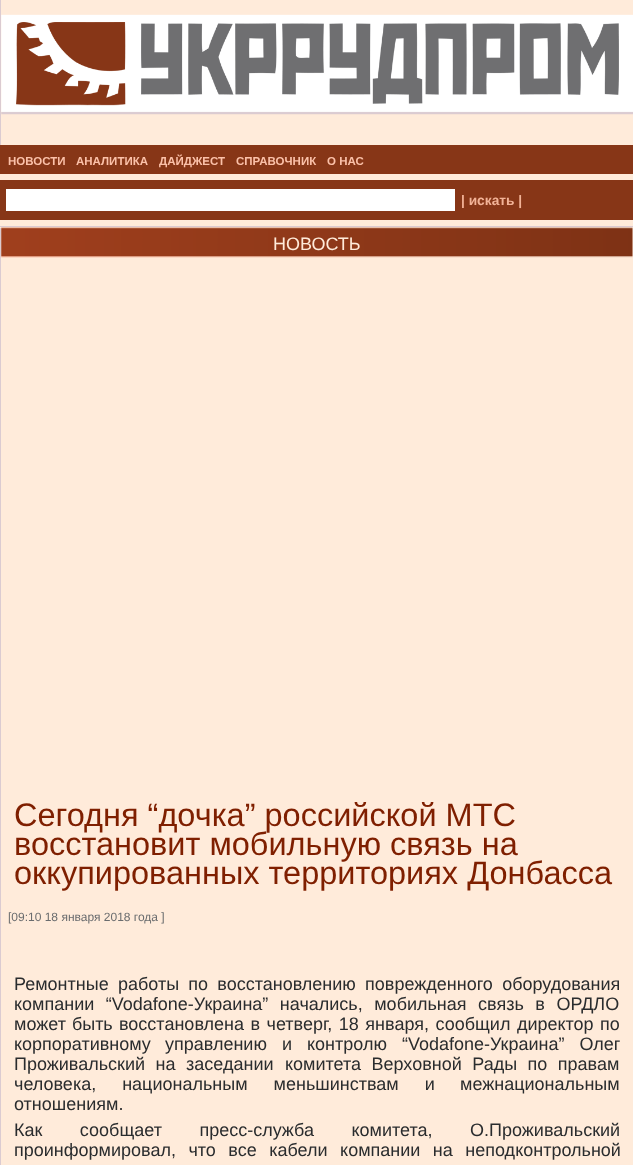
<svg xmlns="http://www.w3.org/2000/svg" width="633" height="1165">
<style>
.a{font:bold 11.5px Liberation Sans;fill:#fbc1a9}
.b{font:bold 13.75px Liberation Sans;fill:#f2b397}
.c{font:18px Liberation Sans;fill:#ffebda}
.d{font:32.5px Liberation Sans;fill:#7f1f00}
.e{font:12px Liberation Sans;fill:#6a6c6e}
.f{font:18px Liberation Sans;fill:#2a2c2e}
</style>
<rect width="100%" height="100%" fill="#ffebda"/>
<path fill="#dbcbd1" d="M0 0h1v145H0z"/>
<image href="1.png" x="1" y="14" width="632" height="101"/>
<path fill="#873617" d="M0 145h633v29H0z"/>
<path fill="#873617" d="M0 180h633v40H0z"/>
<path fill="#fff" d="M6 189h449v22H6z"/>
<path fill="#dbcbd1" d="M0 226h633v1H0z"/>
<path fill="#dbcbd1" d="M0 228h1v937H0z"/>
<image href="2.png" x="1" y="227" width="632" height="31"/>
<text class="a" x="8" y="165">НОВОСТИ</text>
<text class="a" x="76" y="165">АНАЛИТИКА</text>
<text class="a" x="159" y="165">ДАЙДЖЕСТ</text>
<text class="a" x="236" y="165">СПРАВОЧНИК</text>
<text class="a" x="327" y="165">О НАС</text>
<text class="b" x="461" y="205">| искать |</text>
<text class="c" x="273" y="250">НОВОСТЬ</text>
<text class="d" x="14" y="826">Сегодня “дочка” российской МТС</text>
<text class="d" x="14" y="855">восстановит мобильную связь на</text>
<text class="d" x="14" y="884">оккупированных территориях Донбасса</text>
<text class="e" x="8" y="921">[09:10 18 января 2018 года ]</text>
<text class="f" x="14" y="990" word-spacing="4.25">Ремонтные работы по восстановлению поврежденного оборудования</text>
<text class="f" x="14" y="1010" word-spacing="6.5">компании “Vodafone-Украина” начались, мобильная связь в ОРДЛО</text>
<text class="f" x="14" y="1030" word-spacing="1">может быть</text>
<text class="f" x="119" y="1030" word-spacing="1.5">восстановлена в четверг, 18 января, сообщил директор по</text>
<text class="f" x="14" y="1050">корпоративному</text>
<text class="f" x="165" y="1050" word-spacing="10">управлению и контролю “Vodafone-Украина” Олег</text>
<text class="f" x="14" y="1070" word-spacing="5.5">Проживальский на заседании</text>
<text class="f" x="285" y="1070" word-spacing="5.5">комитета Верховной Рады по правам</text>
<text class="f" x="14" y="1090" word-spacing="21">человека, национальным меньшинствам и</text>
<text class="f" x="460" y="1090">межнациональным</text>
<text class="f" x="14" y="1110">отношениям.</text>
<text class="f" x="14" y="1136" word-spacing="32.5">Как сообщает пресс-служба комитета, О.Проживальский</text>
<text class="f" x="14" y="1156" word-spacing="7.5">проинформировал, что все кабели компании на неподконтрольной</text>
</svg>
